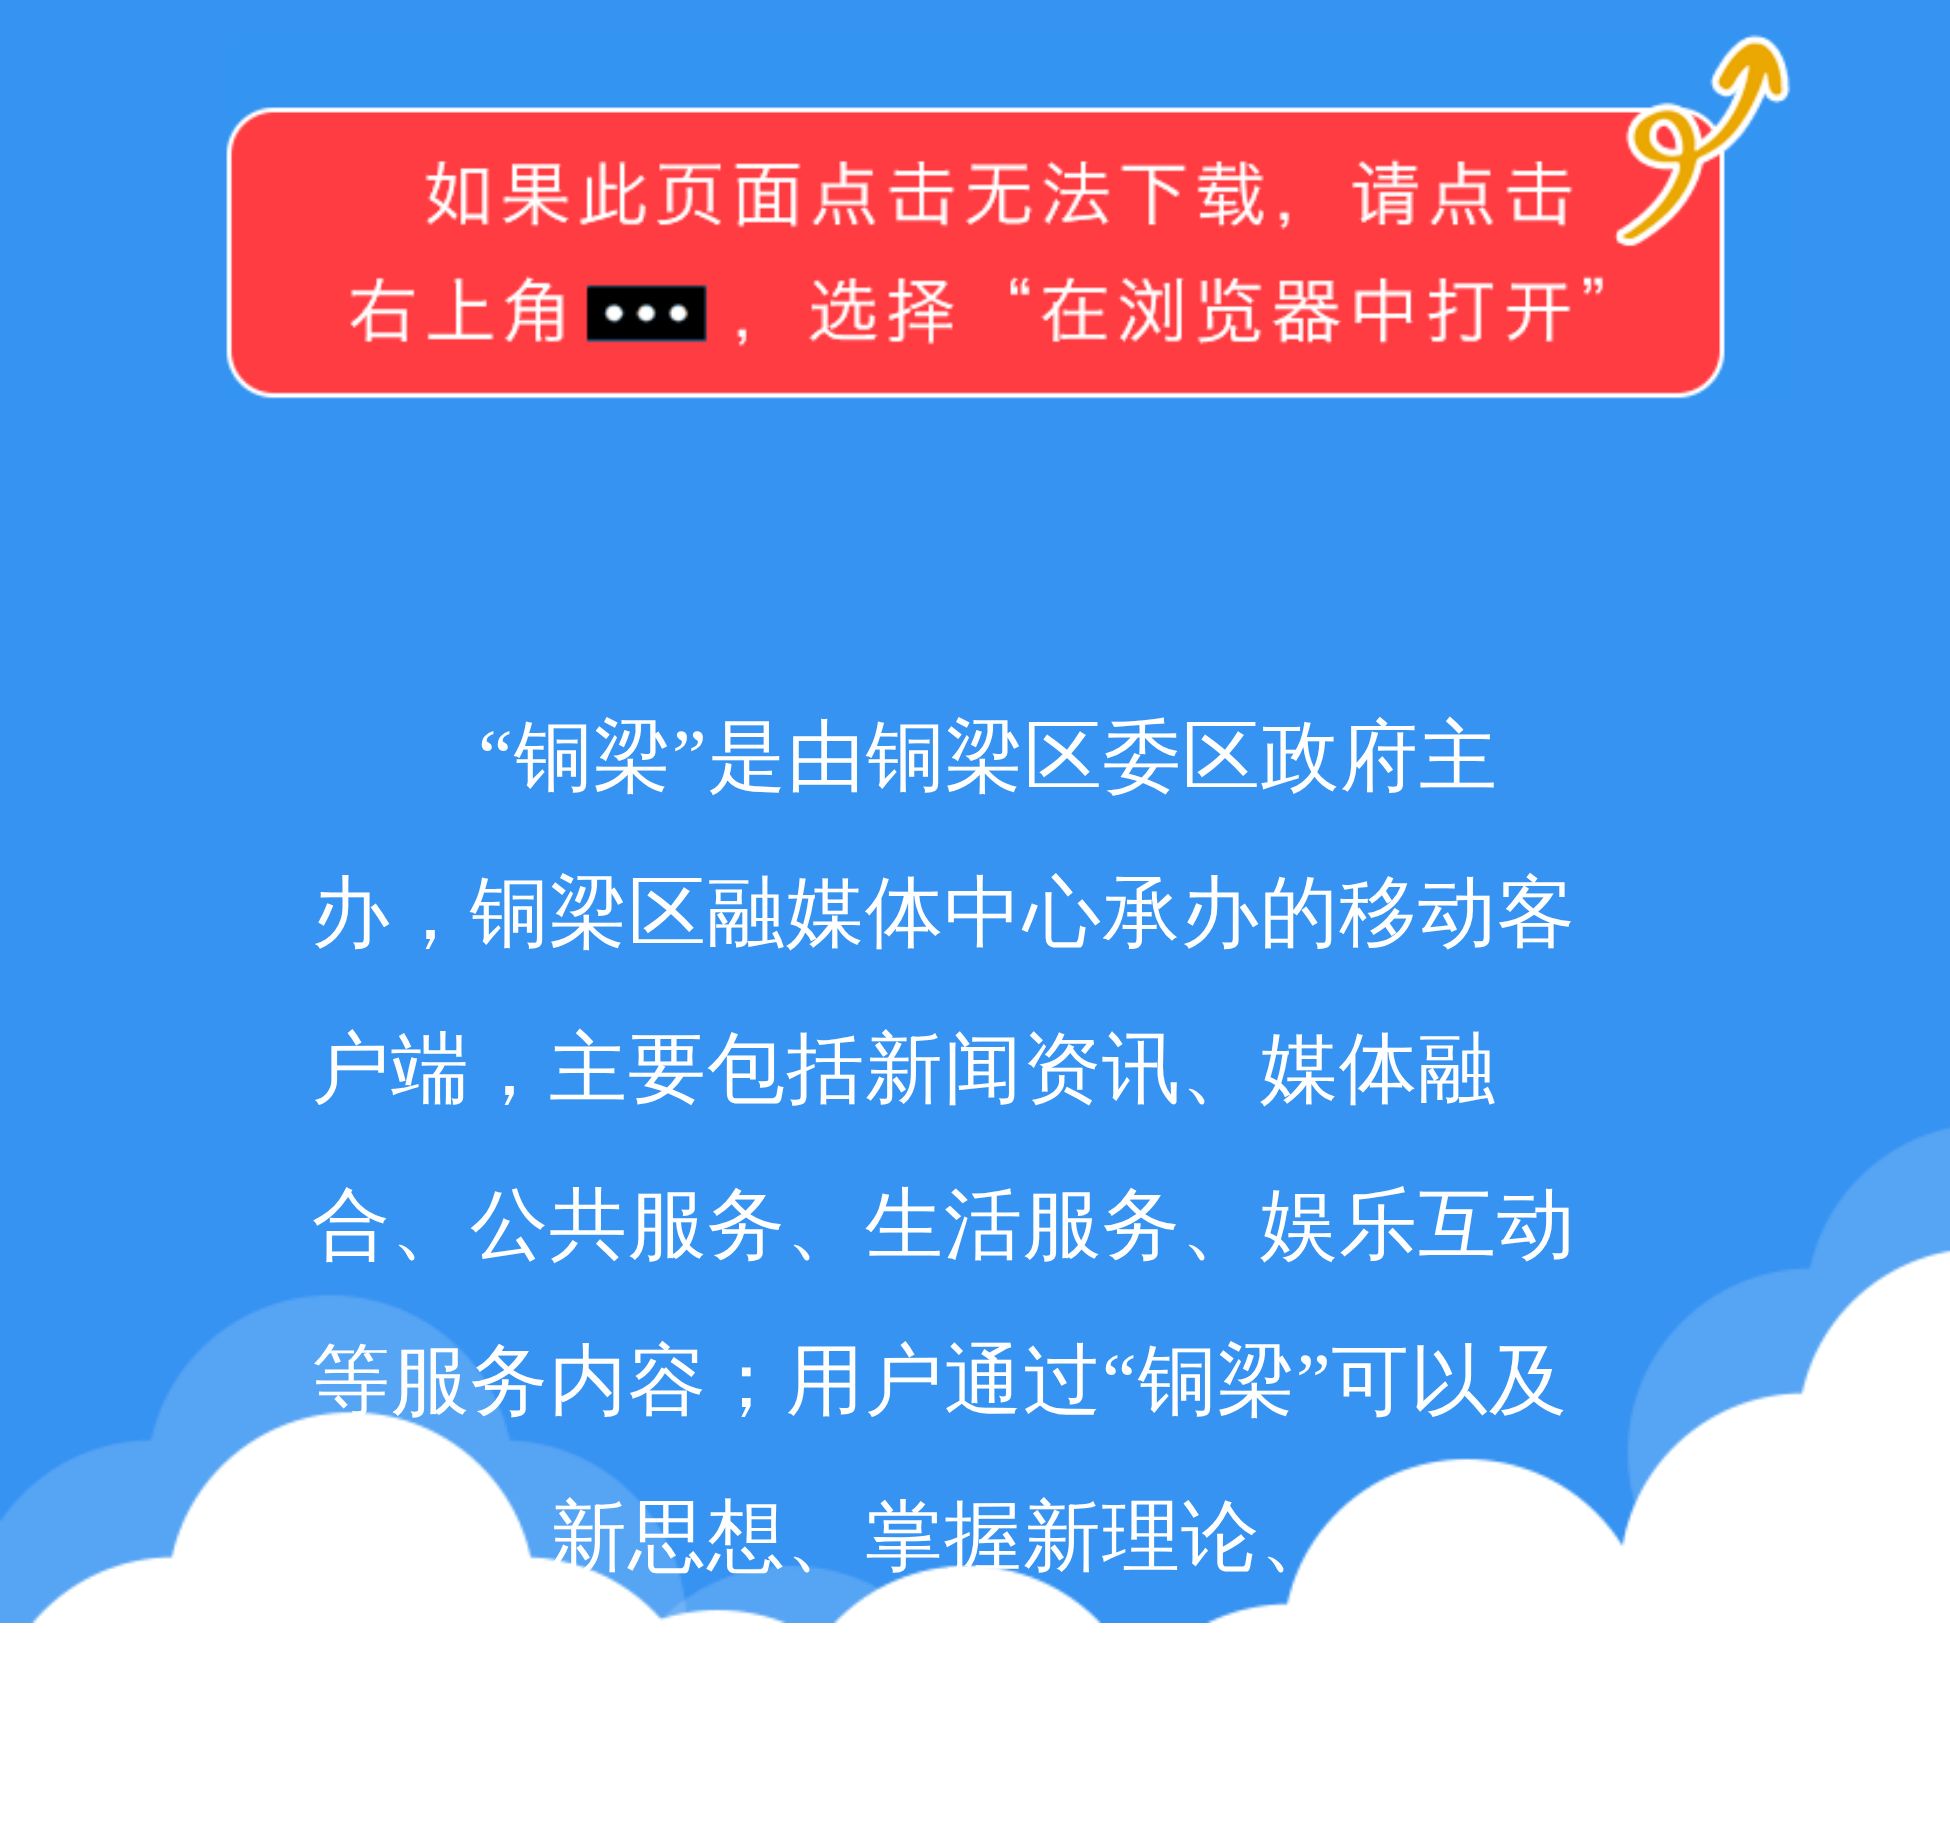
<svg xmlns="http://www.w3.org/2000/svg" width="1950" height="1831">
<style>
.a{font:78px Liberation Serif;letter-spacing:1px;fill:#fefefe}
.b{font:500 78px WenQuanYi Zen Hei;letter-spacing:1px;fill:#fefefe}
</style>
<rect width="100%" height="100%" fill="#3693f2"/>
<image href="1.png" x="226" y="34" width="1565" height="365"/>
<path fill="#fff" d="M0 1623h1950v208H0z"/>
<text class="a" x="478" y="783">“</text>
<text class="b" x="514" y="783">铜梁</text>
<text class="a" x="672" y="783">”</text>
<text class="b" x="708" y="783">是由铜梁区委区政府主</text>
<text class="b" x="312" y="939">办，铜梁区融媒体中心承办的移动客</text>
<text class="b" x="312" y="1095">户端，主要包括新闻资讯、媒体融</text>
<text class="b" x="312" y="1251">合、公共服务、生活服务、娱乐互动</text>
<text class="b" x="312" y="1407">等服务内容；用户通过</text>
<text class="a" x="1102" y="1407">“</text>
<text class="b" x="1138" y="1407">铜梁</text>
<text class="a" x="1296" y="1407">”</text>
<text class="b" x="1331" y="1407">可以及</text>
<text class="b" x="549" y="1563">新思想、掌握新理论、</text>
<image href="2.png" x="0" y="1126" width="1950" height="497"/>
</svg>
